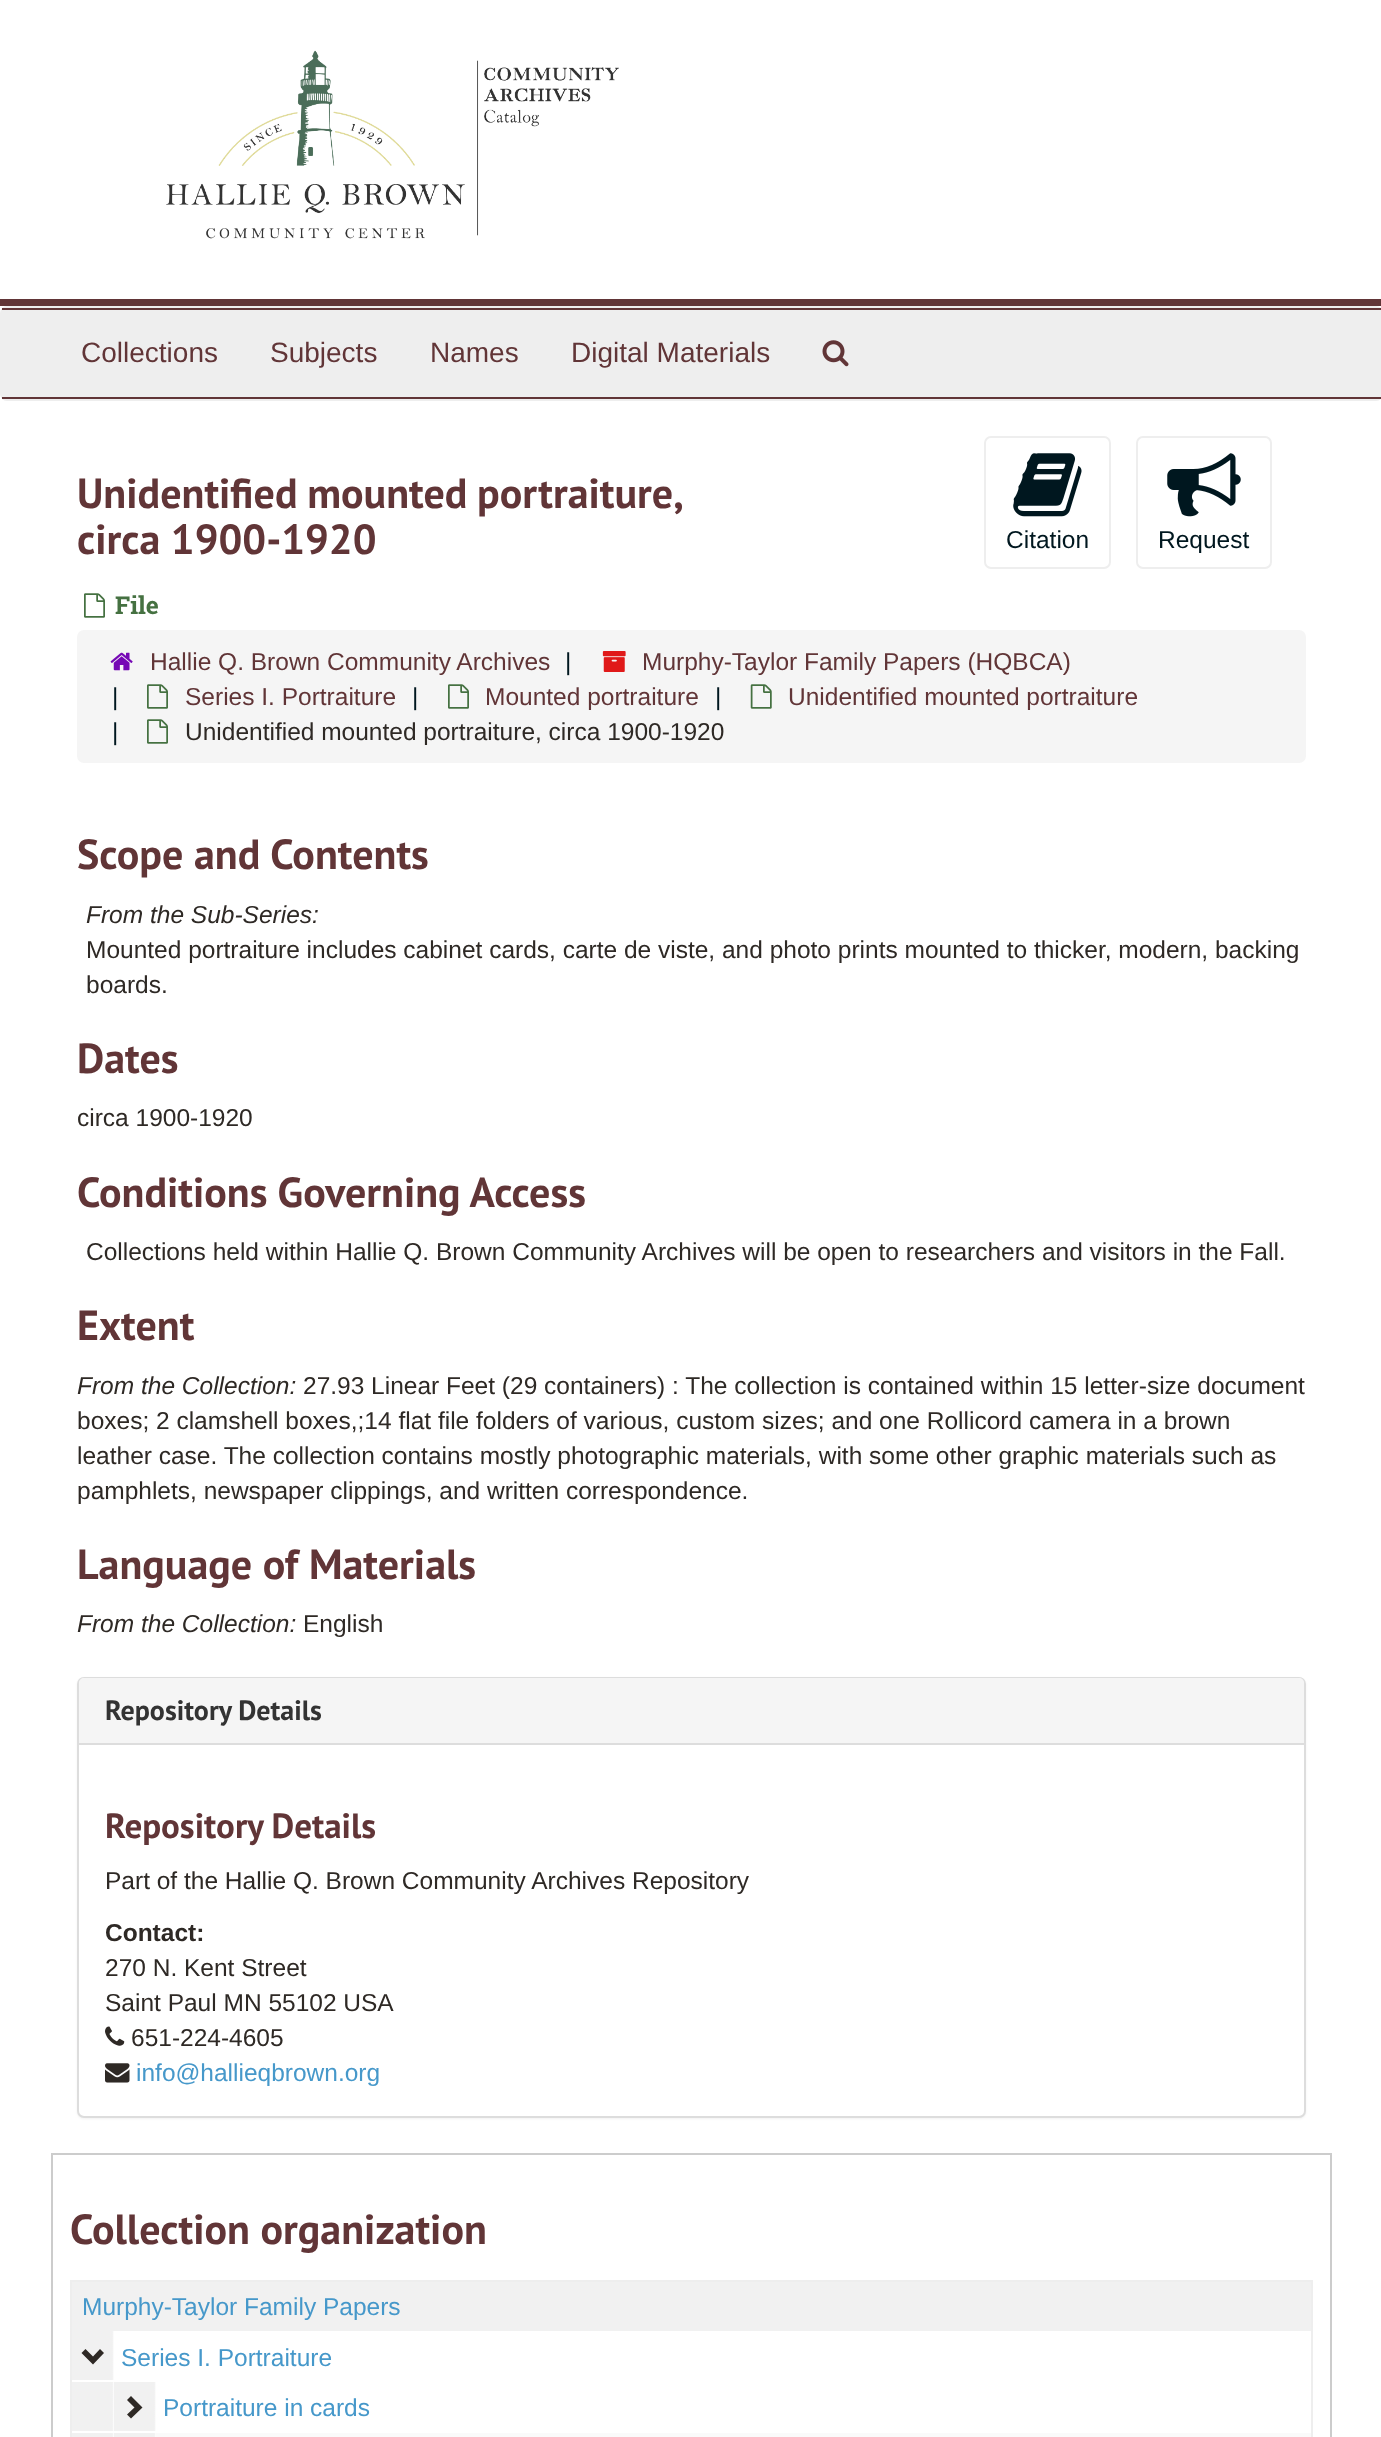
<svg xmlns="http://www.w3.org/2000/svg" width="1381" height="2437">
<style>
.a{font:28px Liberation Sans;fill:#613537}
.b{font:bold 42px PT Sans;fill:#613537}
.c{font:bold 24.5px Roboto Slab;fill:#457141}
.d{font:24.5px Liberation Sans;fill:#00171f}
.e{font:24.5px Liberation Sans;fill:#613537}
.f{font:24.5px Liberation Sans;fill:#2e2925}
.g{font:italic 24.5px Liberation Sans;fill:#2e2925}
.h{font:bold 28px PT Sans;fill:#333}
.i{font:bold 35px PT Sans;fill:#613537}
.j{font:bold 24.5px Liberation Sans;fill:#2e2925}
.k{font:24.5px Liberation Sans;fill:#4698ca}
</style>
<defs>
<linearGradient id="g1" gradientUnits="userSpaceOnUse" x1="72" y1="2356" x2="114" y2="2356"><stop offset="0" stop-color="#f1f1f1"/><stop offset="0.96" stop-color="#f1f1f1"/><stop offset="1" stop-color="#fff"/></linearGradient>
<linearGradient id="g2" gradientUnits="userSpaceOnUse" x1="72" y1="2406" x2="156" y2="2406"><stop offset="0" stop-color="#f1f1f1"/><stop offset="0.48" stop-color="#f1f1f1"/><stop offset="0.5" stop-color="#fff"/><stop offset="0.5" stop-color="#f1f1f1"/><stop offset="0.98" stop-color="#f1f1f1"/><stop offset="1" stop-color="#fff"/></linearGradient>
<linearGradient id="g3" gradientUnits="userSpaceOnUse" x1="72" y1="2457" x2="156" y2="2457"><stop offset="0" stop-color="#f1f1f1"/><stop offset="0.48" stop-color="#f1f1f1"/><stop offset="0.5" stop-color="#fff"/><stop offset="0.5" stop-color="#f1f1f1"/><stop offset="0.98" stop-color="#f1f1f1"/><stop offset="1" stop-color="#fff"/></linearGradient>
</defs>
<rect width="100%" height="100%" fill="#fff"/>
<path fill="#613537" d="M0 299h1381v7H0z"/>
<image href="1.png" x="166" y="50" width="453" height="189"/>
<rect fill="#eee" stroke="#eee" stroke-width="2" x="1" y="307" width="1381" height="93" rx="6"/>
<path fill="#613537" d="M2 308h1379v2H2z"/>
<path fill="#613537" d="M2 397h1379v2H2z"/>
<image href="2.png" x="822" y="340" width="27" height="27"/>
<image href="3.png" x="84" y="593" width="21" height="25"/>
<rect fill="none" stroke="#eee" stroke-width="2" x="985" y="437" width="125" height="131" rx="6"/>
<image href="4.png" x="1013" y="453" width="69" height="64"/>
<rect fill="none" stroke="#eee" stroke-width="2" x="1137" y="437" width="134" height="131" rx="6"/>
<image href="5.png" x="1167" y="453" width="74" height="64"/>
<rect fill="#f5f5f5" x="77" y="630" width="1229" height="133" rx="7"/>
<image href="6.png" x="110" y="652" width="23" height="19"/>
<image href="7.png" x="602" y="651" width="24" height="21"/>
<image href="8.png" x="147" y="684" width="21" height="25"/>
<image href="8.png" x="448" y="684" width="21" height="25"/>
<image href="9.png" x="750" y="684" width="22" height="25"/>
<image href="8.png" x="147" y="719" width="21" height="25"/>
<rect fill="#0000000d" filter="blur(1px)" x="77" y="1678" width="1229" height="441" rx="7"/>
<rect fill="#fff" stroke="#ddd" stroke-width="2" x="78" y="1678" width="1227" height="439" rx="6"/>
<path fill="#f5f5f5" d="M84 1678h1215c3 0 5 2 5 5v60h-1225v-60c0-3 2-5 5-5z"/>
<path fill="#ddd" d="M79 1743h1225v2H79z"/>
<image href="10.png" x="105" y="2026" width="20" height="20"/>
<image href="11.png" x="105" y="2063" width="25" height="20"/>
<path fill="none" stroke="#ccc" stroke-width="2" d="M52 2154h1279v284H52z"/>
<path fill="#eee" d="M70 2280h1243v157H70z"/>
<path fill="#f1f1f1" d="M72 2282h1239v49H72z"/>
<path fill="#fff" d="M72 2331h1239v102H72z"/>
<path fill="url(#g1)" d="M72 2331h42v49H72z"/>
<path fill="#2e2925" d="M93 2364.5l-11.5-11.5l4-4l7.5 7.5l7-7.5l4 4z"/>
<path fill="url(#g2)" d="M72 2382h84v49H72z"/>
<path fill="#2e2925" d="M142.5 2407.5l-11.5 11l-4-4l7.5-7l-7.5-7.5l4-4z"/>
<path fill="#fafafa" d="M156 2433h1155v4H156z"/>
<path fill="url(#g3)" d="M72 2433h84v4H72z"/>
<text class="a" x="81" y="362">Collections</text>
<text class="a" x="270" y="362">Subjects</text>
<text class="a" x="430" y="362">Names</text>
<text class="a" x="571" y="362">Digital Materials</text>
<text class="b" x="77" y="508" word-spacing="-1">Unidentified mounted portraiture,</text>
<text class="b" x="77" y="554">circa 1900-1920</text>
<text class="c" x="115" y="614">File</text>
<text class="d" x="1006" y="548">Citation</text>
<text class="d" x="1158" y="548">Request</text>
<text class="e" x="150" y="670">Hallie Q. Brown Community Archives</text>
<text class="d" x="565" y="670">|</text>
<text class="e" x="642" y="670">Murphy-Taylor Family Papers (HQBCA)</text>
<text class="d" x="112" y="705">|</text>
<text class="e" x="185" y="705">Series I. Portraiture</text>
<text class="d" x="412" y="705">|</text>
<text class="e" x="485" y="705">Mounted portraiture</text>
<text class="d" x="715" y="705">|</text>
<text class="e" x="788" y="705">Unidentified mounted portraiture</text>
<text class="d" x="112" y="740">|</text>
<text class="f" x="185" y="740">Unidentified mounted portraiture, circa 1900-1920</text>
<text class="b" x="77" y="869">Scope and Contents</text>
<text class="g" x="86" y="923">From the Sub-Series:</text>
<text class="f" x="86" y="958">Mounted portraiture includes cabinet cards, carte de viste, and photo prints mounted to thicker, modern, backing</text>
<text class="f" x="86" y="993">boards.</text>
<text class="b" x="77" y="1073">Dates</text>
<text class="f" x="77" y="1126">circa 1900-1920</text>
<text class="b" x="77" y="1207">Conditions Governing Access</text>
<text class="f" x="86" y="1260">Collections held within Hallie Q. Brown Community Archives will be open to researchers and visitors in the Fall.</text>
<text class="b" x="77" y="1340">Extent</text>
<text class="g" x="77" y="1394">From the Collection:</text>
<text class="f" x="303" y="1394">27.93 Linear Feet (29 containers) : The collection is contained within 15 letter-size document</text>
<text class="f" x="77" y="1429">boxes; 2 clamshell boxes,;14 flat file folders of various, custom sizes; and one Rollicord camera in a brown</text>
<text class="f" x="77" y="1464">leather case. The collection contains mostly photographic materials, with some other graphic materials such as</text>
<text class="f" x="77" y="1499">pamphlets, newspaper clippings, and written correspondence.</text>
<text class="b" x="77" y="1579">Language of Materials</text>
<text class="g" x="77" y="1632">From the Collection:</text>
<text class="f" x="303" y="1632">English</text>
<text class="h" x="105" y="1720">Repository Details</text>
<text class="i" x="105" y="1838">Repository Details</text>
<text class="f" x="105" y="1889">Part of the Hallie Q. Brown Community Archives Repository</text>
<text class="j" x="105" y="1941">Contact:</text>
<text class="f" x="105" y="1976">270 N. Kent Street</text>
<text class="f" x="105" y="2011">Saint Paul MN 55102 USA</text>
<text class="f" x="131" y="2046">651-224-4605</text>
<text class="k" x="136" y="2081">info@hallieqbrown.org</text>
<text class="b" x="70" y="2244">Collection organization</text>
<text class="k" x="82" y="2315">Murphy-Taylor Family Papers</text>
<text class="k" x="121" y="2366">Series I. Portraiture</text>
<text class="k" x="163" y="2416">Portraiture in cards</text>
</svg>
